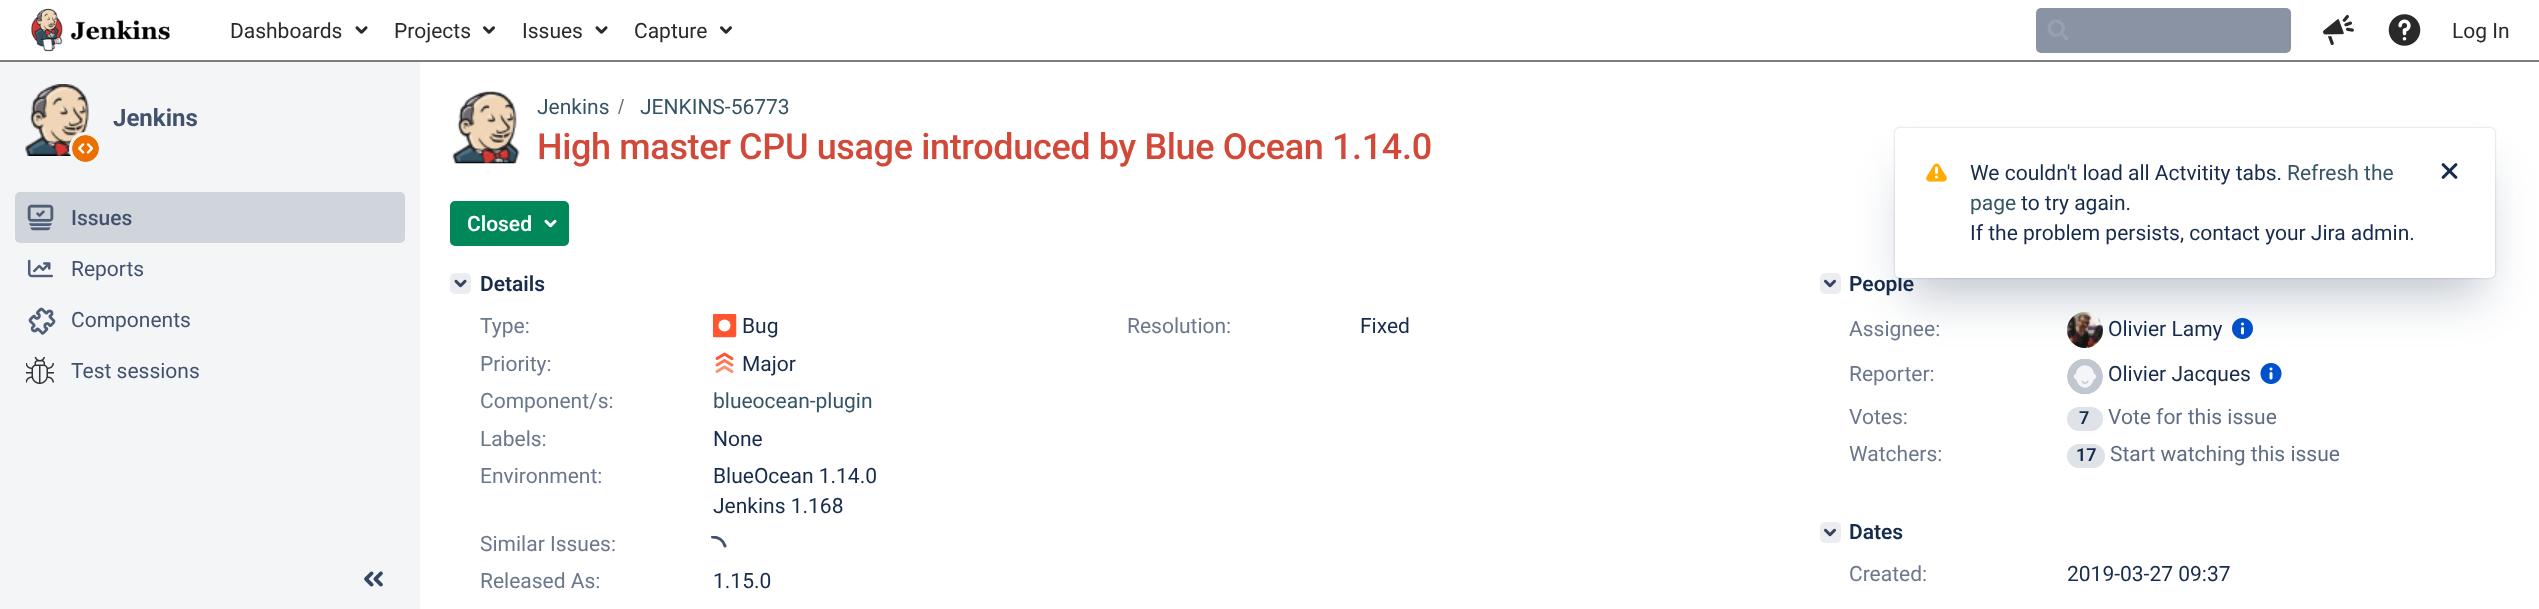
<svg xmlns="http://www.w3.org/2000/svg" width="2539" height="609">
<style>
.a{font:21px Roboto;fill:#292929}
.b{font:bold 24px Roboto;fill:#42526e}
.c{font:500 21px Roboto;fill:#42526e}
.d{font:21px Roboto;fill:#42526e}
.e{font:21px Roboto;fill:#355564}
.f{font:500 36px Roboto;letter-spacing:-0.35px;fill:#d24939}
.g{font:600 21px Roboto;fill:#fff}
.h{font:600 21px Roboto;fill:#172b4d}
.i{font:21px Roboto;fill:#6b778c}
.j{font:21px Roboto;fill:#172b4d}
.k{font:600 18px Roboto;fill:#172b4d}
.l{font:21px Roboto;fill:#5e6c84}
</style>
<defs>
<clipPath id="clip1"><path d="M698 536h30v30H698z"/></clipPath>
</defs>
<rect width="100%" height="100%" fill="#fff"/>
<path fill="#7d7d7d" d="M0 60h2539v2H0z"/>
<image href="1.png" x="31" y="8" width="139" height="44"/>
<image href="2.png" x="355" y="26" width="13" height="8"/>
<image href="3.png" x="483" y="26" width="12" height="8"/>
<image href="2.png" x="595" y="26" width="13" height="8"/>
<image href="3.png" x="720" y="26" width="12" height="8"/>
<rect fill="#8993a4" x="2036" y="8" width="255" height="45" rx="5"/>
<image href="4.png" x="2047" y="19" width="22" height="22"/>
<image href="5.png" x="2323" y="15" width="31" height="30"/>
<image href="6.png" x="2388" y="14" width="33" height="32"/>
<path fill="#f4f5f7" d="M0 62h420v547H0z"/>
<image href="7.png" x="25" y="84" width="64" height="72"/>
<circle fill="#f4f5f7" cx="85.5" cy="148.5" r="16.5"/>
<image href="8.png" x="72" y="135" width="27" height="27"/>
<rect fill="#e1e4e9" x="15" y="192" width="390" height="51" rx="5"/>
<rect fill="#091e4214" x="15" y="192" width="390" height="51" rx="5"/>
<image href="9.png" x="27" y="204" width="27" height="27"/>
<image href="10.png" x="27" y="259" width="26" height="19"/>
<image href="11.png" x="28" y="307" width="28" height="28"/>
<image href="12.png" x="26" y="357" width="28" height="27"/>
<image href="13.png" x="364" y="571" width="19" height="16"/>
<image href="14.png" x="452" y="91" width="68" height="73"/>
<path fill="#707070" d="M619.5 114l4.5-15h-1.5l-4.5 15z"/>
<rect fill="#00875a" stroke="#00875a" stroke-width="2" x="451" y="202" width="117" height="43" rx="4"/>
<image href="15.png" x="544" y="219" width="13" height="9"/>
<rect fill="#ebedf0" x="450" y="273" width="21" height="21" rx="5"/>
<image href="16.png" x="454" y="279" width="13" height="9"/>
<image href="17.png" x="713" y="314" width="24" height="24"/>
<image href="18.png" x="715" y="352" width="19" height="21"/>
<g clip-path="url(#clip1)">
<path fill="none" stroke="#42526e" stroke-width="3" stroke-linecap="round" d="M712.5 537c6 0 11 3.5 12.5 9"/>
</g>
<rect fill="#ebedf0" x="1820" y="273" width="21" height="21" rx="5"/>
<image href="19.png" x="1824" y="279" width="12" height="9"/>
<image href="20.png" x="2067" y="312" width="36" height="36"/>
<image href="21.png" x="2232" y="318" width="21" height="21"/>
<image href="22.png" x="2067" y="359" width="36" height="36"/>
<image href="23.png" x="2260" y="363" width="22" height="21"/>
<rect fill="#dfe2e6" x="2067" y="407" width="36" height="24" rx="12"/>
<rect fill="#dfe2e6" x="2067" y="444" width="38" height="24" rx="12"/>
<rect fill="#ebedf0" x="1820" y="522" width="21" height="21" rx="5"/>
<image href="19.png" x="1824" y="528" width="12" height="9"/>
<rect fill="#091e4240" filter="blur(1px)" x="1895" y="128" width="600" height="150" rx="5"/>
<path fill="#091e4240" filter="blur(24px)" d="M1907 170h576v126H1907z"/>
<text class="a" x="230" y="38">Dashboards</text>
<text class="a" x="394" y="38">Projects</text>
<text class="a" x="522" y="38">Issues</text>
<text class="a" x="634" y="38">Capture</text>
<text class="a" x="2452" y="38">Log In</text>
<text class="b" x="113" y="126">Jenkins</text>
<text class="c" x="71" y="225">Issues</text>
<text class="d" x="71" y="276">Reports</text>
<text class="d" x="71" y="327">Components</text>
<text class="d" x="71" y="378">Test sessions</text>
<text class="e" x="537" y="114">Jenkins</text>
<text class="e" x="640" y="114">JENKINS-56773</text>
<text class="f" x="537" y="159">High master CPU usage introduced by Blue Ocean 1.14.0</text>
<text class="g" x="467" y="231">Closed</text>
<text class="h" x="480" y="291">Details</text>
<text class="i" x="480" y="333">Type:</text>
<text class="j" x="742" y="333">Bug</text>
<text class="i" x="1127" y="333">Resolution:</text>
<text class="j" x="1360" y="333">Fixed</text>
<text class="i" x="480" y="371">Priority:</text>
<text class="j" x="742" y="371">Major</text>
<text class="i" x="480" y="408">Component/s:</text>
<text class="e" x="713" y="408">blueocean-plugin</text>
<text class="i" x="480" y="446">Labels:</text>
<text class="j" x="713" y="446">None</text>
<text class="i" x="480" y="483">Environment:</text>
<text class="j" x="713" y="483">BlueOcean 1.14.0</text>
<text class="j" x="713" y="513">Jenkins 1.168</text>
<text class="i" x="480" y="551">Similar Issues:</text>
<text class="i" x="480" y="588">Released As:</text>
<text class="j" x="713" y="588">1.15.0</text>
<text class="h" x="1849" y="291">People</text>
<text class="i" x="1849" y="336">Assignee:</text>
<text class="j" x="2108" y="336">Olivier Lamy</text>
<text class="i" x="1849" y="381">Reporter:</text>
<text class="j" x="2108" y="381">Olivier Jacques</text>
<text class="i" x="1849" y="424">Votes:</text>
<text class="k" x="2079" y="424">7</text>
<text class="l" x="2108" y="424">Vote for this issue</text>
<text class="i" x="1849" y="461">Watchers:</text>
<text class="k" x="2076" y="461">17</text>
<text class="l" x="2110" y="461">Start watching this issue</text>
<text class="h" x="1849" y="539">Dates</text>
<text class="i" x="1849" y="581">Created:</text>
<text class="j" x="2067" y="581">2019-03-27 09:37</text>
<rect fill="#fff" x="1895" y="128" width="600" height="150" rx="5"/>
<image href="24.png" x="1926" y="163" width="21" height="19"/>
<text class="j" x="1970" y="180">We couldn't load all Actvitity tabs.</text>
<text class="e" x="2287" y="180">Refresh the</text>
<image href="25.png" x="2441" y="163" width="17" height="16"/>
<text class="e" x="1970" y="210">page</text>
<text class="j" x="2021" y="210">to try again.</text>
<text class="j" x="1970" y="240">If the problem persists, contact your Jira admin.</text>
</svg>
